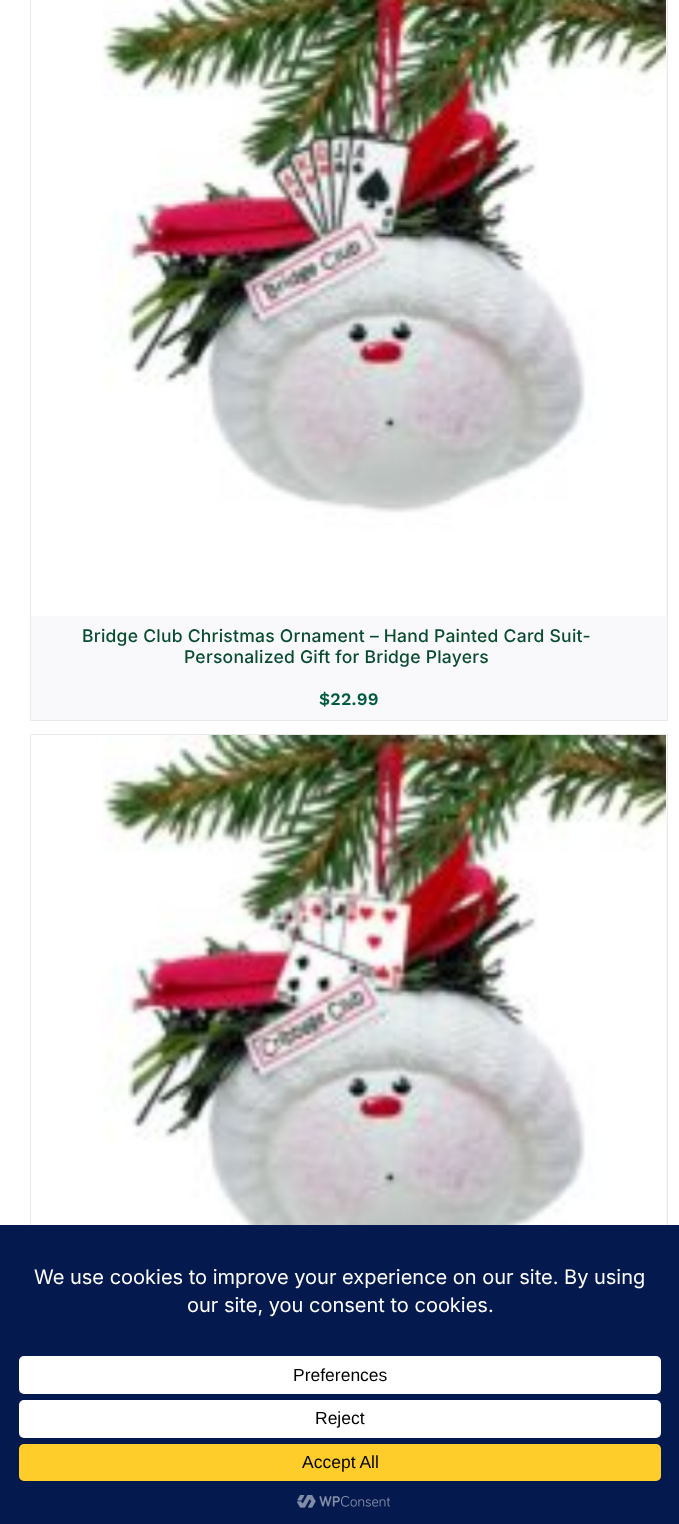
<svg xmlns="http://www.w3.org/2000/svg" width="679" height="1524">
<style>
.a{font:500 17.5px Inter;letter-spacing:0.25px;fill:#084b2f}
.b{font:600 17.5px Work Sans;letter-spacing:0.25px;fill:#005b3e}
.c{font:20px Inter;fill:#fff}
.d{font:17.5px Liberation Sans;fill:#000}
</style>
<rect width="100%" height="100%" fill="#fff"/>
<path fill="#f9f9fb" stroke="#eae8e8" d="M30.5 -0.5h637v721H30.5z"/>
<image href="1.png" x="31" y="0" width="635" height="616"/>
<path fill="#f9f9fb" d="M666 735h1v490H666z"/>
<path fill="none" stroke="#eae8e8" d="M30.5 734.5h637v741H30.5z"/>
<image href="2.png" x="31" y="735" width="635" height="490"/>
<path fill="#04194e" d="M0 1225h679v299H0z"/>
<rect fill="#fff" x="19" y="1356" width="642" height="38" rx="5"/>
<rect fill="#fff" x="19" y="1400" width="642" height="38" rx="5"/>
<rect fill="#ffcd2a" x="19" y="1444" width="642" height="37" rx="5"/>
<image href="3.png" x="297" y="1495" width="93" height="13"/>
<text class="a" x="82" y="642">Bridge Club Christmas Ornament – Hand Painted Card Suit-</text>
<text class="a" x="184" y="663">Personalized Gift for Bridge Players</text>
<text class="b" x="319" y="705">$22.99</text>
<text class="c" x="34" y="1284">We use cookies to improve your experience on our site. By using</text>
<text class="c" x="187" y="1312">our site, you consent to cookies.</text>
<text class="d" x="293" y="1381">Preferences</text>
<text class="d" x="315" y="1424">Reject</text>
<text class="d" x="302" y="1468">Accept All</text>
</svg>
